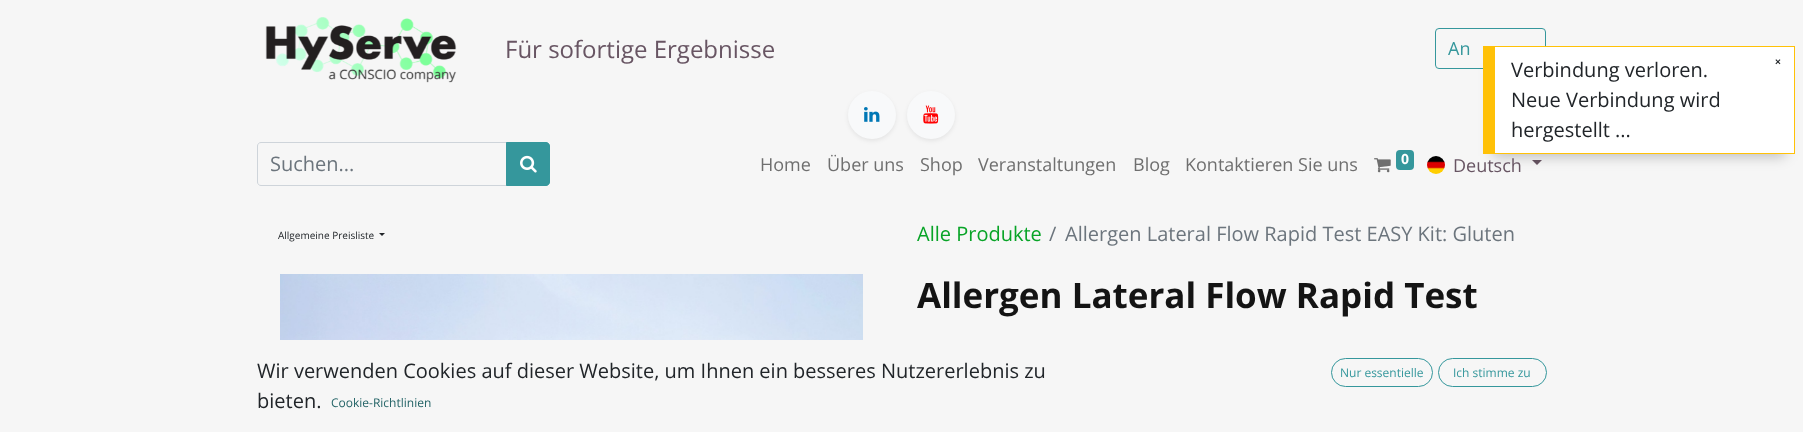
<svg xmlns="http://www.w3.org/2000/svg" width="1803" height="432">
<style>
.a{font:24px Open Sans;fill:#685563}
.b{font:18px Open Sans;fill:#35979c}
.c{font:20px Open Sans;fill:#6c757d}
.d{font:18px Open Sans;fill:#6f6f6f}
.e{font:bold 14px Open Sans;fill:#fff}
.f{font:18px Open Sans;fill:#685563}
.g{font:10px Open Sans;fill:#212529}
.h{font:20px Open Sans;fill:#08a427}
.i{font:bold 35px Open Sans;fill:#141414}
.j{font:20px Open Sans;fill:#212529}
.k{font:12px Open Sans;fill:#236366}
.l{font:12px Open Sans;fill:#35979c}
.m{font:bold 10px Liberation Sans;fill:#212529}
</style>
<rect width="100%" height="100%" fill="#f6f6f6"/>
<image href="1.png" x="265" y="17" width="192" height="66"/>
<rect fill="none" stroke="#35979c" x="1435.5" y="28.5" width="110" height="40" rx="3.5"/>
<rect fill="#00000012" filter="blur(2px)" x="848" y="93" width="48" height="48" rx="24"/>
<circle fill="#f8f9fa" cx="872" cy="115" r="24"/>
<image href="2.png" x="864" y="107" width="16" height="15"/>
<rect fill="#00000012" filter="blur(2px)" x="907" y="93" width="48" height="48" rx="24"/>
<circle fill="#f8f9fa" cx="931" cy="115" r="24"/>
<image href="3.png" x="923" y="105" width="16" height="19"/>
<path fill="none" stroke="#ced4da" d="M261 142.5h245.5v43h-245.5c-2 0-3.5-1.5-3.5-3.5v-36c0-2 1.5-3.5 3.5-3.5z"/>
<path fill="#35979c" stroke="#35979c" d="M506.5 142.5h39.5c2 0 3.5 1.5 3.5 3.5v36c0 2-1.5 3.5-3.5 3.5h-39.5z"/>
<image href="4.png" x="520" y="155" width="17" height="18"/>
<image href="5.png" x="1374" y="158" width="17" height="15"/>
<rect fill="#35979c" x="1396" y="150" width="18" height="20" rx="4"/>
<image href="6.png" x="1427" y="156" width="18" height="18"/>
<path fill="#685563" d="M1532 160h10l-5 5z"/>
<path fill="#212529" d="M379 233h6l-3 3z"/>
<image href="7.png" x="280" y="274" width="583" height="66"/>
<rect fill="none" stroke="#35979c" x="1331.5" y="358.5" width="101" height="28" rx="14"/>
<rect fill="none" stroke="#35979c" x="1438.5" y="358.5" width="108" height="28" rx="14"/>
<path fill="#00000040" filter="blur(7px)" d="M1493 68h292v88H1493z"/>
<path fill="#fff" d="M1495 47h299v106H1495z"/>
<path fill="#ffc107" d="M1495 46h300v1H1495z"/>
<path fill="#ffc107" d="M1794 46h1v108H1794z"/>
<path fill="#ffc107" d="M1495 153h300v1H1495z"/>
<path fill="#ffc107" d="M1483 46h12v108H1483z"/>
<text class="a" x="505" y="58">Für sofortige Ergebnisse</text>
<text class="b" x="1448" y="55">An</text>
<text class="c" x="270" y="171">Suchen...</text>
<text class="d" x="760" y="171">Home</text>
<text class="d" x="827" y="171">Über uns</text>
<text class="d" x="920" y="171">Shop</text>
<text class="d" x="978" y="171">Veranstaltungen</text>
<text class="d" x="1133" y="171">Blog</text>
<text class="d" x="1185" y="171">Kontaktieren Sie uns</text>
<text class="e" x="1401" y="164">0</text>
<text class="f" x="1453" y="172">Deutsch</text>
<text class="g" x="278" y="239">Allgemeine Preisliste</text>
<text class="h" x="917" y="241">Alle Produkte</text>
<text class="c" x="1049" y="241">/</text>
<text class="c" x="1065" y="241">Allergen Lateral Flow Rapid Test EASY Kit: Gluten</text>
<text class="i" x="917" y="308">Allergen Lateral Flow Rapid Test</text>
<text class="j" x="257" y="378">Wir verwenden Cookies auf dieser Website, um Ihnen ein besseres Nutzererlebnis zu</text>
<text class="j" x="257" y="408">bieten.</text>
<text class="k" x="331" y="407">Cookie-Richtlinien</text>
<text class="l" x="1340" y="377">Nur essentielle</text>
<text class="l" x="1453" y="377">Ich stimme zu</text>
<text class="j" x="1511" y="77">Verbindung verloren.</text>
<text class="j" x="1511" y="107">Neue Verbindung wird</text>
<text class="j" x="1511" y="137">hergestellt ...</text>
<text class="m" x="1775" y="65">×</text>
</svg>
